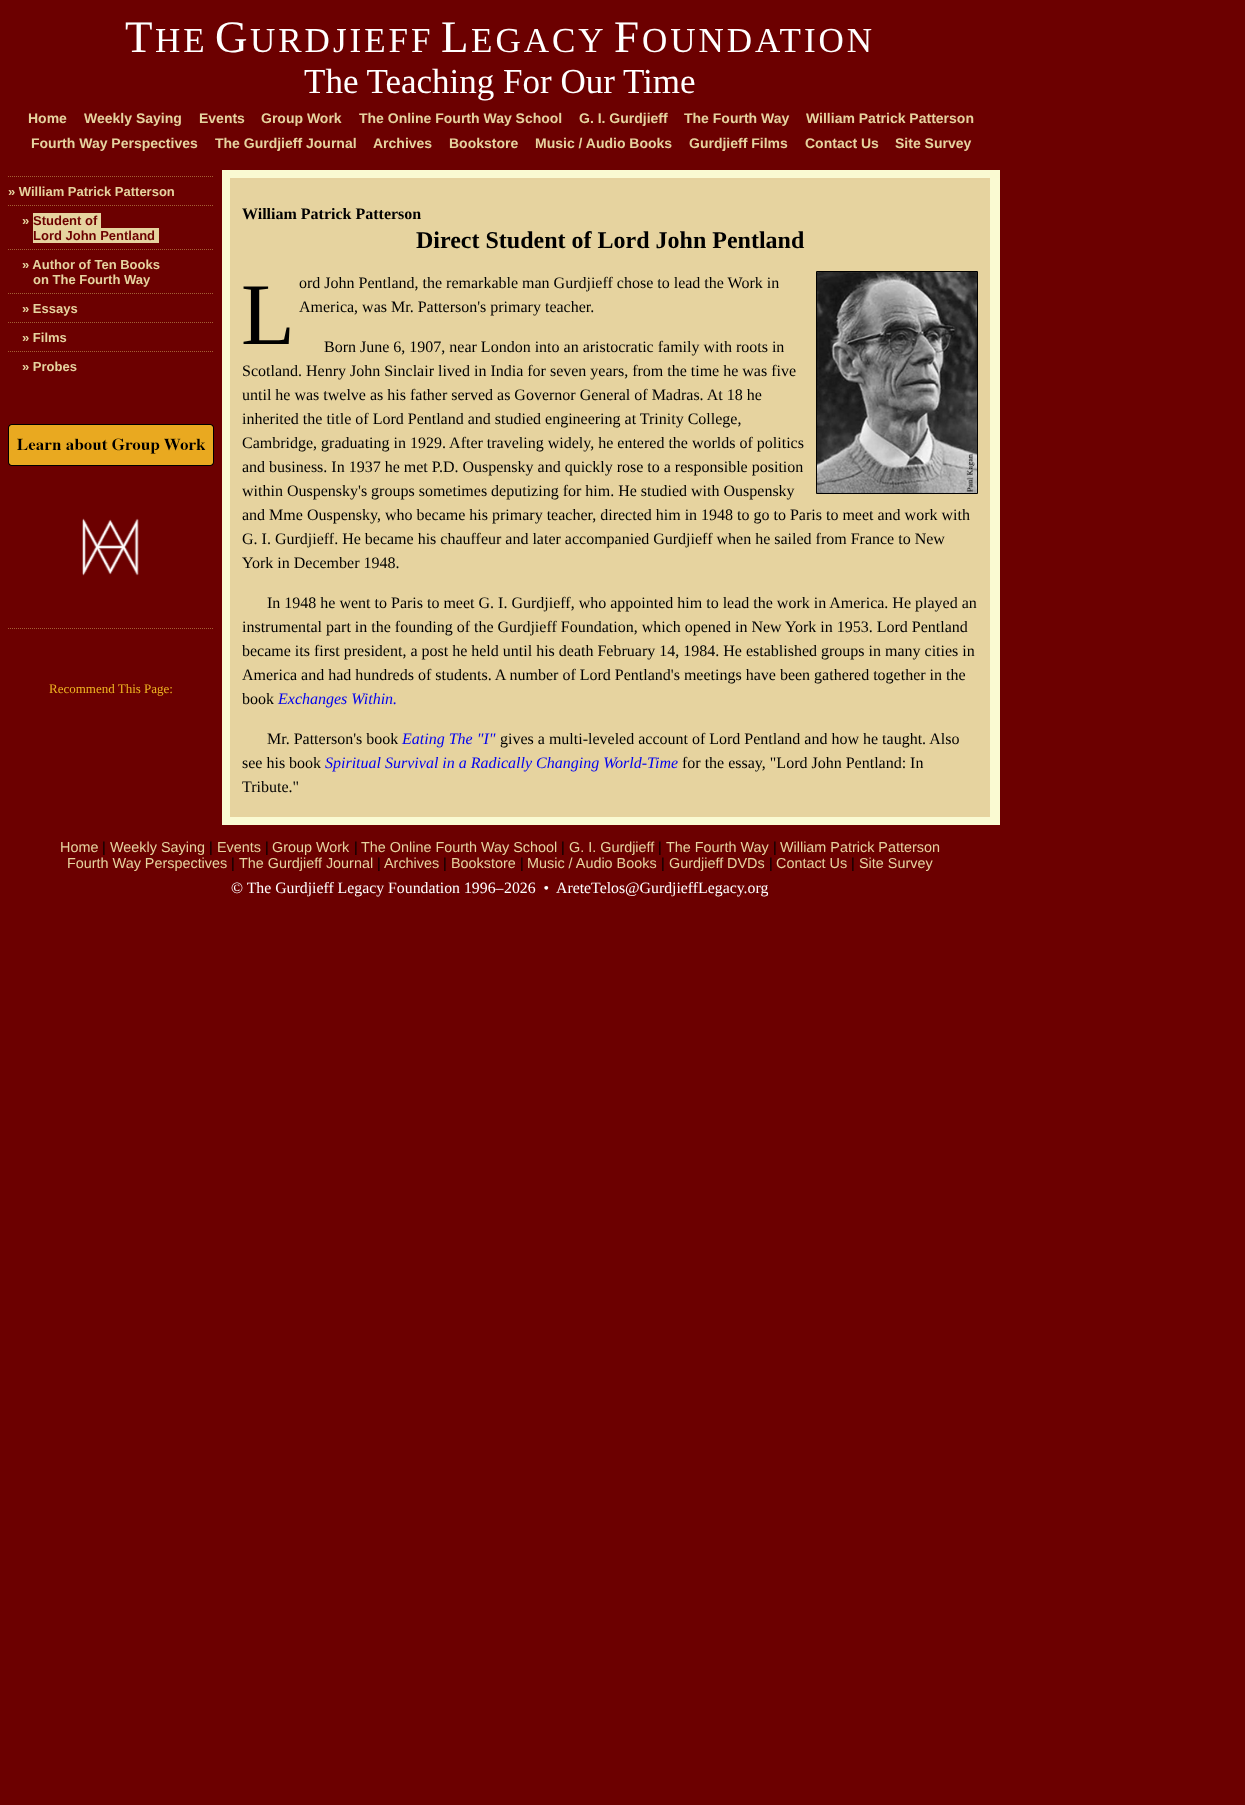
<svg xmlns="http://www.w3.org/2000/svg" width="1245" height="1805">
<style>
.a{font:45px Liberation Serif;letter-spacing:3px;fill:#fff}
.b{font:35px Liberation Serif;letter-spacing:3px;fill:#fff}
.c{font:35px Liberation Serif;fill:#fff}
.d{font:bold 14px Liberation Sans;fill:#e6d39f}
.e{font:bold 13px Liberation Sans;fill:#e6d39f}
.f{font:bold 13px Liberation Sans;fill:#6c0000}
.g{font:13px Liberation Serif;fill:#eeb422}
.h{font:bold 16px Liberation Serif;fill:#000}
.i{font:bold 24px Liberation Serif;fill:#000}
.j{font:16px Liberation Serif;fill:#000}
.k{font:88px Liberation Serif;fill:#000}
.l{font:italic 16px Liberation Serif;fill:#00e}
.m{font:14.4px Liberation Sans;fill:#e6d39f}
.n{font:14.4px Liberation Sans;fill:#000}
.o{font:15.8px Liberation Serif;fill:#fff}
</style>
<rect width="100%" height="100%" fill="#6c0000"/>
<path fill="none" stroke="#a35f34" stroke-dasharray="1 1" d="M8 176.5h206"/>
<path fill="none" stroke="#a35f34" stroke-dasharray="1 1" d="M8 205.5h206"/>
<path fill="#e6d39f" d="M33 213h68v15H33z"/>
<path fill="#e6d39f" d="M33 228h126v15H33z"/>
<path fill="none" stroke="#a35f34" stroke-dasharray="1 1" d="M8 249.5h206"/>
<path fill="none" stroke="#a35f34" stroke-dasharray="1 1" d="M8 293.5h206"/>
<path fill="none" stroke="#a35f34" stroke-dasharray="1 1" d="M8 322.5h206"/>
<path fill="none" stroke="#a35f34" stroke-dasharray="1 1" d="M8 351.5h206"/>
<image href="1.png" x="8" y="424" width="206" height="42"/>
<image href="2.png" x="82" y="518" width="57" height="58"/>
<path fill="none" stroke="#a35f34" stroke-dasharray="1 1" d="M8 628.5h206"/>
<path fill="#fafad2" d="M222 170h778v655H222z"/>
<path fill="#e6d39f" d="M230 178h760v639H230z"/>
<path fill="none" stroke="#000" d="M816.5 271.5h161v222H816.5z"/>
<image href="3.png" x="817" y="272" width="160" height="221"/>
<text class="a" x="125" y="52">T</text>
<text class="b" x="155" y="52">HE</text>
<text class="a" x="215" y="52">G</text>
<text class="b" x="250" y="52">URDJIEFF</text>
<text class="a" x="441" y="52">L</text>
<text class="b" x="471" y="52">EGACY</text>
<text class="a" x="614" y="52">F</text>
<text class="b" x="642" y="52">OUNDATION</text>
<text class="c" x="304" y="93">The Teaching For Our Time</text>
<text class="d" x="31" y="148">Fourth Way Perspectives</text>
<text class="d" x="215" y="148">The Gurdjieff Journal</text>
<text class="d" x="373" y="148">Archives</text>
<text class="d" x="449" y="148">Bookstore</text>
<text class="d" x="535" y="148">Music / Audio Books</text>
<text class="d" x="689" y="148">Gurdjieff Films</text>
<text class="d" x="805" y="148">Contact Us</text>
<text class="d" x="895" y="148">Site Survey</text>
<text class="d" x="28" y="123">Home</text>
<text class="d" x="84" y="123">Weekly Saying</text>
<text class="d" x="199" y="123">Events</text>
<text class="d" x="261" y="123">Group Work</text>
<text class="d" x="359" y="123">The Online Fourth Way School</text>
<text class="d" x="579" y="123">G. I. Gurdjieff</text>
<text class="d" x="684" y="123">The Fourth Way</text>
<text class="d" x="806" y="123">William Patrick Patterson</text>
<text class="e" x="8" y="196">» William Patrick Patterson</text>
<text class="e" x="22" y="225">»</text>
<text class="f" x="33" y="225">Student of</text>
<text class="f" x="33" y="240">Lord John Pentland</text>
<text class="e" x="22" y="269">» Author of Ten Books</text>
<text class="e" x="33" y="284">on The Fourth Way</text>
<text class="e" x="22" y="313">» Essays</text>
<text class="e" x="22" y="342">» Films</text>
<text class="e" x="22" y="371">» Probes</text>
<text class="g" x="49" y="693">Recommend This Page:</text>
<text class="h" x="242" y="219">William Patrick Patterson</text>
<text class="i" x="416" y="248">Direct Student of Lord John Pentland</text>
<text class="j" x="299" y="288">ord John Pentland, the remarkable man Gurdjieff chose to lead the Work in</text>
<text class="k" x="241" y="344">L</text>
<text class="j" x="299" y="312">America, was Mr. Patterson's primary teacher.</text>
<text class="j" x="324" y="352">Born June 6, 1907, near London into an aristocratic family with roots in</text>
<text class="j" x="242" y="376">Scotland. Henry John Sinclair lived in India for seven years, from the time he was five</text>
<text class="j" x="242" y="400">until he was twelve as his father served as Governor General of Madras. At 18 he</text>
<text class="j" x="242" y="424">inherited the title of Lord Pentland and studied engineering at Trinity College,</text>
<text class="j" x="242" y="448">Cambridge, graduating in 1929. After traveling widely, he entered the worlds of politics</text>
<text class="j" x="242" y="472">and business. In 1937 he met P.D. Ouspensky and quickly rose to a responsible position</text>
<text class="j" x="242" y="496">within Ouspensky's groups sometimes deputizing for him. He studied with Ouspensky</text>
<text class="j" x="242" y="520">and Mme Ouspensky, who became his primary teacher, directed him in 1948 to go to Paris to meet and work with</text>
<text class="j" x="242" y="544">G. I. Gurdjieff. He became his chauffeur and later accompanied Gurdjieff when he sailed from France to New</text>
<text class="j" x="242" y="568">York in December 1948.</text>
<text class="j" x="267" y="608">In 1948 he went to Paris to meet G. I. Gurdjieff, who appointed him to lead the work in America. He played an</text>
<text class="j" x="242" y="632">instrumental part in the founding of the Gurdjieff Foundation, which opened in New York in 1953. Lord Pentland</text>
<text class="j" x="242" y="656">became its first president, a post he held until his death February 14, 1984. He established groups in many cities in</text>
<text class="j" x="242" y="680">America and had hundreds of students. A number of Lord Pentland's meetings have been gathered together in the</text>
<text class="j" x="242" y="704">book</text>
<text class="l" x="278" y="704">Exchanges Within.</text>
<text class="j" x="267" y="744">Mr. Patterson's book</text>
<text class="l" x="402" y="744">Eating The "I"</text>
<text class="j" x="500" y="744">gives a multi-leveled account of Lord Pentland and how he taught. Also</text>
<text class="j" x="242" y="768">see his book</text>
<text class="l" x="325" y="768">Spiritual Survival in a Radically Changing World-Time</text>
<text class="j" x="682" y="768">for the essay, "Lord John Pentland: In</text>
<text class="j" x="242" y="792">Tribute."</text>
<text class="m" x="60" y="852">Home</text>
<text class="n" x="102" y="852">|</text>
<text class="m" x="110" y="852">Weekly Saying</text>
<text class="n" x="209" y="852">|</text>
<text class="m" x="217" y="852">Events</text>
<text class="n" x="265" y="852">|</text>
<text class="m" x="272" y="852">Group Work</text>
<text class="n" x="354" y="852">|</text>
<text class="m" x="361" y="852">The Online Fourth Way School</text>
<text class="n" x="561" y="852">|</text>
<text class="m" x="569" y="852">G. I. Gurdjieff</text>
<text class="n" x="658" y="852">|</text>
<text class="m" x="666" y="852">The Fourth Way</text>
<text class="n" x="773" y="852">|</text>
<text class="m" x="780" y="852">William Patrick Patterson</text>
<text class="m" x="67" y="868">Fourth Way Perspectives</text>
<text class="n" x="231" y="868">|</text>
<text class="m" x="239" y="868">The Gurdjieff Journal</text>
<text class="n" x="377" y="868">|</text>
<text class="m" x="384" y="868">Archives</text>
<text class="n" x="443" y="868">|</text>
<text class="m" x="451" y="868">Bookstore</text>
<text class="n" x="520" y="868">|</text>
<text class="m" x="527" y="868">Music / Audio Books</text>
<text class="n" x="661" y="868">|</text>
<text class="m" x="669" y="868">Gurdjieff DVDs</text>
<text class="n" x="769" y="868">|</text>
<text class="m" x="776" y="868">Contact Us</text>
<text class="n" x="851" y="868">|</text>
<text class="m" x="859" y="868">Site Survey</text>
<text class="o" x="231" y="893">© The Gurdjieff Legacy Foundation 1996–</text>
<text class="o" xml:space="preserve" x="504" y="893">2026  •</text>
<text class="o" x="556" y="893">AreteTelos@GurdjieffLegacy.org</text>
</svg>
